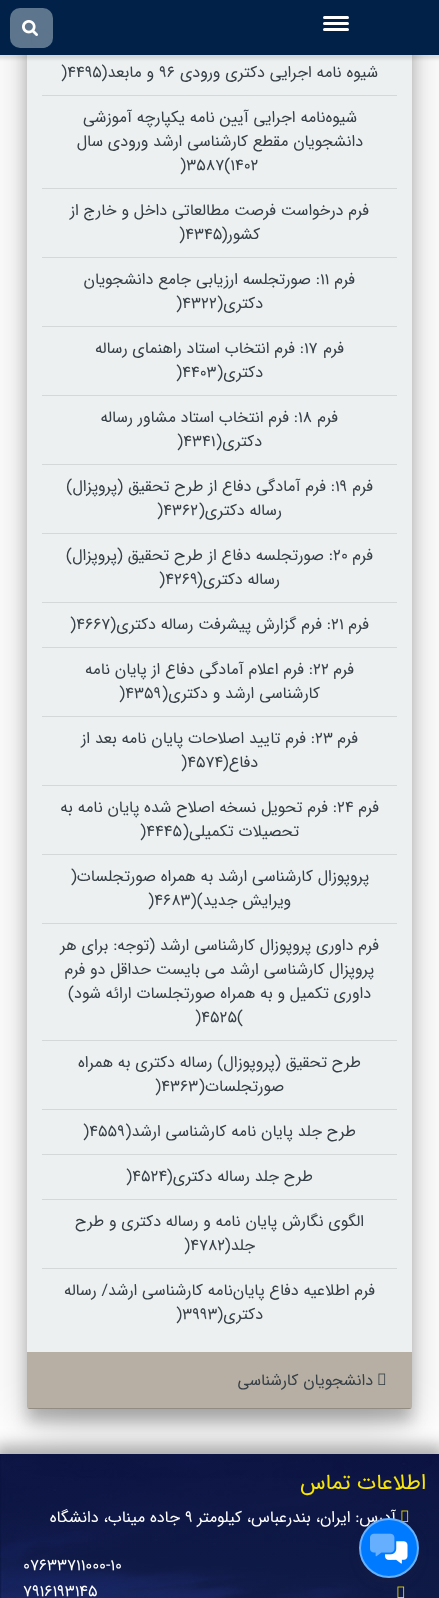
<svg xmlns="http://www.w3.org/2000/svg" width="439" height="1598">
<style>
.a{font:16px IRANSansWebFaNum;direction:rtl;fill:#374046}
.b{font:16px IRANSansWebFaNum;fill:#374046}
.c{font:21.75px IRANSansWebFaNum;direction:rtl;fill:#f9e605}
.d{font:16px IRANSansWebFaNum;direction:rtl;fill:#fff}
.e{font:16px IRANSansWebFaNum;fill:#fff}
</style>
<defs>
<clipPath id="clip1"><rect x="10" y="8" width="43" height="40" rx="10"/></clipPath>
<clipPath id="clip2"><rect x="27" y="-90" width="385" height="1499" rx="3"/></clipPath>
</defs>
<rect width="100%" height="100%" fill="#fff"/>
<rect fill="#0000003d" filter="blur(7.5px)" x="27" y="-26" width="385" height="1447" rx="3"/>
<path fill="#0000004d" filter="blur(7.5px)" d="M-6 1445h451v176H-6z"/>
<image href="3.png" x="0" y="1454" width="439" height="144"/>
<rect fill="#00000030" filter="blur(25px)" x="27" y="-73" width="385" height="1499" rx="3"/>
<rect fill="#b7afa3" x="27" y="-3" width="385" height="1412" rx="3"/>
<path fill="#ecf0f1" d="M27 55h385v1297H27z"/>
<path fill="#0000001a" filter="blur(1.5px)" d="M-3 -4h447v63H-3z"/>
<path fill="#012148" d="M0 0h439v55H0z"/>
<rect fill="#fff" x="323" y="16" width="26" height="3" rx="1.5"/>
<rect fill="#fff" x="323" y="22" width="26" height="3" rx="1.5"/>
<rect fill="#fff" x="323" y="28" width="26" height="3" rx="1.5"/>
<rect fill="#5d758d" x="10" y="8" width="43" height="40" rx="10"/>
<g clip-path="url(#clip1)">
<circle fill="#5d758d" cx="41" cy="39" r="10"/>
</g>
<image href="1.png" x="22" y="20" width="16" height="16"/>
<path fill="#d4d8d9" d="M42 95h355v1H42z"/>
<path fill="#d4d8d9" d="M42 188h355v1H42z"/>
<path fill="#d4d8d9" d="M42 257h355v1H42z"/>
<path fill="#d4d8d9" d="M42 326h355v1H42z"/>
<path fill="#d4d8d9" d="M42 395h355v1H42z"/>
<path fill="#d4d8d9" d="M42 464h355v1H42z"/>
<path fill="#d4d8d9" d="M42 533h355v1H42z"/>
<path fill="#d4d8d9" d="M42 602h355v1H42z"/>
<path fill="#d4d8d9" d="M42 647h355v1H42z"/>
<path fill="#d4d8d9" d="M42 716h355v1H42z"/>
<path fill="#d4d8d9" d="M42 785h355v1H42z"/>
<path fill="#d4d8d9" d="M42 854h355v1H42z"/>
<path fill="#d4d8d9" d="M42 923h355v1H42z"/>
<path fill="#d4d8d9" d="M42 1040h355v1H42z"/>
<path fill="#d4d8d9" d="M42 1109h355v1H42z"/>
<path fill="#d4d8d9" d="M42 1154h355v1H42z"/>
<path fill="#d4d8d9" d="M42 1199h355v1H42z"/>
<path fill="#d4d8d9" d="M42 1268h355v1H42z"/>
<g clip-path="url(#clip2)">
<path fill="#00000033" d="M27 1408h385v1H27z"/>
</g>
<image href="2.png" x="378" y="1373" width="8" height="12"/>
<image href="4.png" x="401" y="1510" width="8" height="12"/>
<image href="5.png" x="397" y="1586" width="8" height="12"/>
<rect fill="#0000004d" filter="blur(3.5px)" x="362" y="1524" width="54" height="54" rx="27"/>
<rect fill="#32325d40" filter="blur(6px)" x="361" y="1526" width="56" height="56" rx="28"/>
<text class="a" x="378" y="77">شیوه نامه اجرایی دکتری ورودی</text>
<text class="b" x="159" y="77">96</text>
<text class="a" x="154" y="77">و مابعد(</text>
<text class="b" x="61" y="77">)4495</text>
<text class="a" x="357" y="122">شیوه‌نامه اجرایی آیین نامه یکپارچه آموزشی</text>
<text class="a" x="363" y="146">دانشجویان مقطع کارشناسی ارشد ورودی سال</text>
<text class="b" x="180" y="170">)3587(1402</text>
<text class="a" x="369" y="215">فرم درخواست فرصت مطالعاتی داخل و خارج از</text>
<text class="a" x="260" y="239">کشور(</text>
<text class="b" x="179" y="239">)4345</text>
<text class="a" x="355" y="284">فرم</text>
<text class="b" x="320" y="284">11</text>
<text class="a" x="320" y="284">: صورتجلسه ارزیابی جامع دانشجویان</text>
<text class="a" x="263" y="308">دکتری(</text>
<text class="b" x="176" y="308">)4322</text>
<text class="a" x="344" y="353">فرم</text>
<text class="b" x="304" y="353">17</text>
<text class="a" x="304" y="353">: فرم انتخاب استاد راهنمای رساله</text>
<text class="a" x="263" y="377">دکتری(</text>
<text class="b" x="176" y="377">)4403</text>
<text class="a" x="338" y="422">فرم</text>
<text class="b" x="298" y="422">18</text>
<text class="a" x="298" y="422">: فرم انتخاب استاد مشاور رساله</text>
<text class="a" x="262" y="446">دکتری(</text>
<text class="b" x="177" y="446">)4341</text>
<text class="a" x="373" y="491">فرم</text>
<text class="b" x="335" y="491">19</text>
<text class="a" x="335" y="491">: فرم آمادگی دفاع از طرح تحقیق (پروپزال)</text>
<text class="a" x="282" y="515">رساله دکتری(</text>
<text class="b" x="157" y="515">)4362</text>
<text class="a" x="373" y="560">فرم</text>
<text class="b" x="333" y="560">20</text>
<text class="a" x="333" y="560">: صورتجلسه دفاع از طرح تحقیق (پروپزال)</text>
<text class="a" x="280" y="584">رساله دکتری(</text>
<text class="b" x="159" y="584">)4269</text>
<text class="a" x="369" y="629">فرم</text>
<text class="b" x="331" y="629">21</text>
<text class="a" x="331" y="629">: فرم گزارش پیشرفت رساله دکتری(</text>
<text class="b" x="70" y="629">)4667</text>
<text class="a" x="354" y="674">فرم</text>
<text class="b" x="313" y="674">22</text>
<text class="a" x="313" y="674">: فرم اعلام آمادگی دفاع از پایان نامه</text>
<text class="a" x="320" y="698">کارشناسی ارشد و دکتری(</text>
<text class="b" x="119" y="698">)4359</text>
<text class="a" x="358" y="743">فرم</text>
<text class="b" x="315" y="743">23</text>
<text class="a" x="315" y="743">: فرم تایید اصلاحات پایان نامه بعد از</text>
<text class="a" x="258" y="767">دفاع(</text>
<text class="b" x="181" y="767">)4574</text>
<text class="a" x="379" y="812">فرم</text>
<text class="b" x="337" y="812">24</text>
<text class="a" x="337" y="812">: فرم تحویل نسخه اصلاح شده پایان نامه به</text>
<text class="a" x="299" y="836">تحصیلات تکمیلی(</text>
<text class="b" x="140" y="836">)4445</text>
<text class="a" x="369" y="881">پروپوزال کارشناسی ارشد به همراه صورتجلسات(</text>
<text class="a" x="291" y="905">ویرایش جدید)(</text>
<text class="b" x="148" y="905">)4683</text>
<text class="a" x="379" y="950">فرم داوری پروپوزال کارشناسی ارشد (توجه: برای هر</text>
<text class="a" x="374" y="974">پروپزال کارشناسی ارشد می بایست حداقل دو فرم</text>
<text class="a" x="371" y="998">داوری تکمیل و به همراه صورتجلسات ارائه شود)</text>
<text class="b" x="195" y="1022">)4525(</text>
<text class="a" x="361" y="1067">طرح تحقیق (پروپوزال) رساله دکتری به همراه</text>
<text class="a" x="284" y="1091">صورتجلسات(</text>
<text class="b" x="155" y="1091">)4363</text>
<text class="a" x="356" y="1136">طرح جلد پایان نامه کارشناسی ارشد(</text>
<text class="b" x="83" y="1136">)4559</text>
<text class="a" x="313" y="1181">طرح جلد رساله دکتری(</text>
<text class="b" x="126" y="1181">)4524</text>
<text class="a" x="364" y="1226">الگوی نگارش پایان نامه و رساله دکتری و طرح</text>
<text class="a" x="255" y="1250">جلد(</text>
<text class="b" x="184" y="1250">)4782</text>
<text class="a" x="375" y="1295">فرم اطلاعیه دفاع پایان‌نامه کارشناسی ارشد/ رساله</text>
<text class="a" x="263" y="1319">دکتری(</text>
<text class="b" x="176" y="1319">)3993</text>
<text class="a" x="373" y="1385">دانشجویان کارشناسی</text>
<text class="c" x="426" y="1489">اطلاعات تماس</text>
<text class="d" x="396" y="1522">آدرس: ایران، بندرعباس، کیلومتر</text>
<text class="e" x="185" y="1522">9</text>
<text class="d" x="180" y="1522">جاده میناب، دانشگاه</text>
<text class="e" x="23" y="1570">07633711000-10</text>
<text class="e" x="23" y="1596">7916193145</text>
<circle fill="#007bff" stroke="#66b0ff" stroke-width="2" cx="389" cy="1548" r="29"/>
<image href="6.png" x="385" y="1541" width="23" height="23"/>
<image href="7.png" x="370" y="1533" width="25" height="24"/>
</svg>
